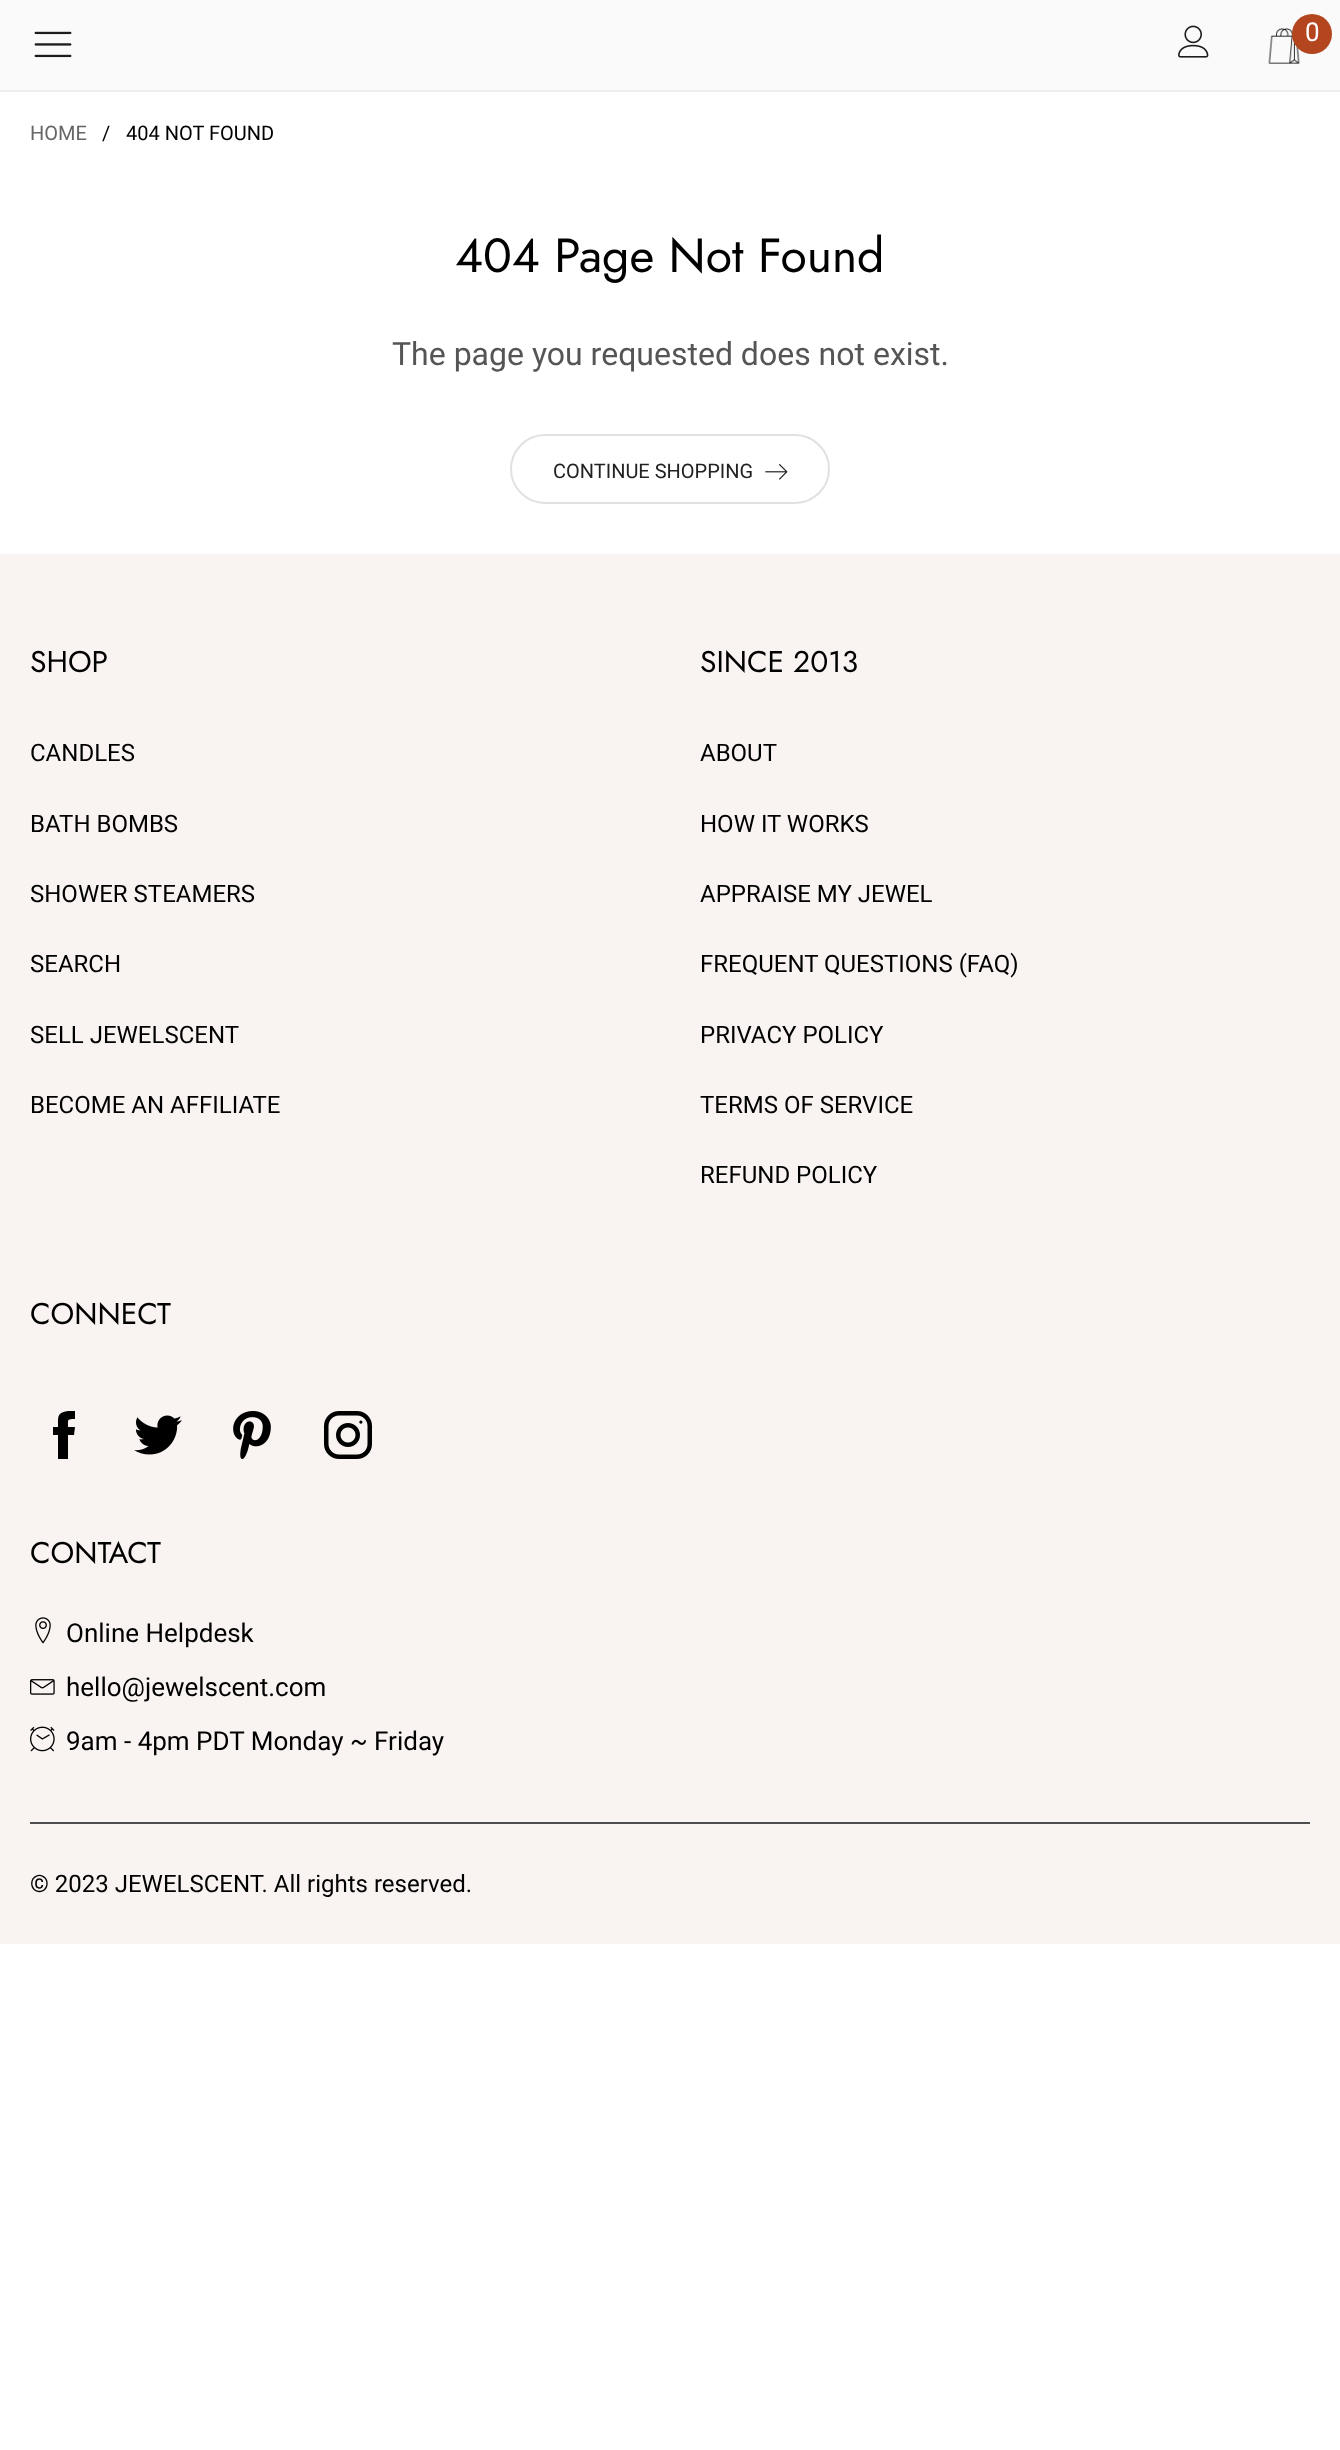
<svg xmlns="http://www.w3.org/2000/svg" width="1340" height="2450">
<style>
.a{font:26px Roboto;fill:#fff}
.b{font:20px Roboto;fill:#666}
.c{font:20px Roboto;fill:#000}
.d{font:48px Jost;fill:#000}
.e{font:32px Roboto;fill:#555}
.f{font:20px Roboto;fill:#222}
.g{font:30px Jost;fill:#000}
.h{font:24px Roboto;fill:#000}
.i{font:26px Roboto;fill:#000}
</style>
<rect width="100%" height="100%" fill="#fff"/>
<path fill="#fafafa" d="M0 0h1340v90H0z"/>
<path fill="#eee" d="M0 90h1340v2H0z"/>
<image href="1.png" x="34" y="31" width="38" height="27"/>
<image href="2.png" x="1178" y="25" width="31" height="33"/>
<image href="3.png" x="1268" y="28" width="32" height="36"/>
<circle fill="#b3461e" cx="1312" cy="34" r="20"/>
<rect fill="none" stroke="#e1e1e1" stroke-width="2" x="511" y="435" width="318" height="68" rx="34"/>
<image href="4.png" x="765" y="464" width="23" height="16"/>
<path fill="#f9f4f1" d="M0 554h1340v1390H0z"/>
<path fill="#000" d="M58 1420v7h-5v8h5v24h10v-24h6l1-8h-7c0-8-1-8 7-8v-8c-7 0-17-1-17 9z"/>
<image href="5.png" x="134" y="1415" width="48" height="40"/>
<image href="6.png" x="233" y="1411" width="38" height="48"/>
<image href="7.png" x="324" y="1411" width="48" height="48"/>
<image href="8.png" x="35" y="1617" width="16" height="27"/>
<image href="9.png" x="30" y="1679" width="25" height="16"/>
<image href="10.png" x="30" y="1726" width="25" height="26"/>
<path fill="#4e4e4e" d="M30 1822h1280v2H30z"/>
<text class="a" x="1305" y="41">0</text>
<text class="b" x="30" y="140">HOME</text>
<text class="c" x="102" y="140">/</text>
<text class="c" x="126" y="140">404 NOT FOUND</text>
<text class="d" x="455" y="272">404 Page Not Found</text>
<text class="e" x="392" y="365">The page you requested does not exist.</text>
<text class="f" x="553" y="478">CONTINUE SHOPPING</text>
<text class="g" x="30" y="672">SHOP</text>
<text class="h" x="30" y="761">CANDLES</text>
<text class="h" x="30" y="832">BATH BOMBS</text>
<text class="h" x="30" y="902">SHOWER STEAMERS</text>
<text class="h" x="30" y="972">SEARCH</text>
<text class="h" x="30" y="1043">SELL JEWELSCENT</text>
<text class="h" x="30" y="1113">BECOME AN AFFILIATE</text>
<text class="g" x="700" y="672">SINCE 2013</text>
<text class="h" x="700" y="761">ABOUT</text>
<text class="h" x="700" y="832">HOW IT WORKS</text>
<text class="h" x="700" y="902">APPRAISE MY JEWEL</text>
<text class="h" x="700" y="972">FREQUENT QUESTIONS (FAQ)</text>
<text class="h" x="700" y="1043">PRIVACY POLICY</text>
<text class="h" x="700" y="1113">TERMS OF SERVICE</text>
<text class="h" x="700" y="1183">REFUND POLICY</text>
<text class="g" x="30" y="1324">CONNECT</text>
<text class="g" x="30" y="1563">CONTACT</text>
<text class="i" x="66" y="1642">Online Helpdesk</text>
<text class="i" x="66" y="1696">hello@jewelscent.com</text>
<text class="i" x="66" y="1750">9am - 4pm PDT Monday ~ Friday</text>
<text class="h" x="30" y="1892">© 2023 JEWELSCENT. All rights reserved.</text>
</svg>
